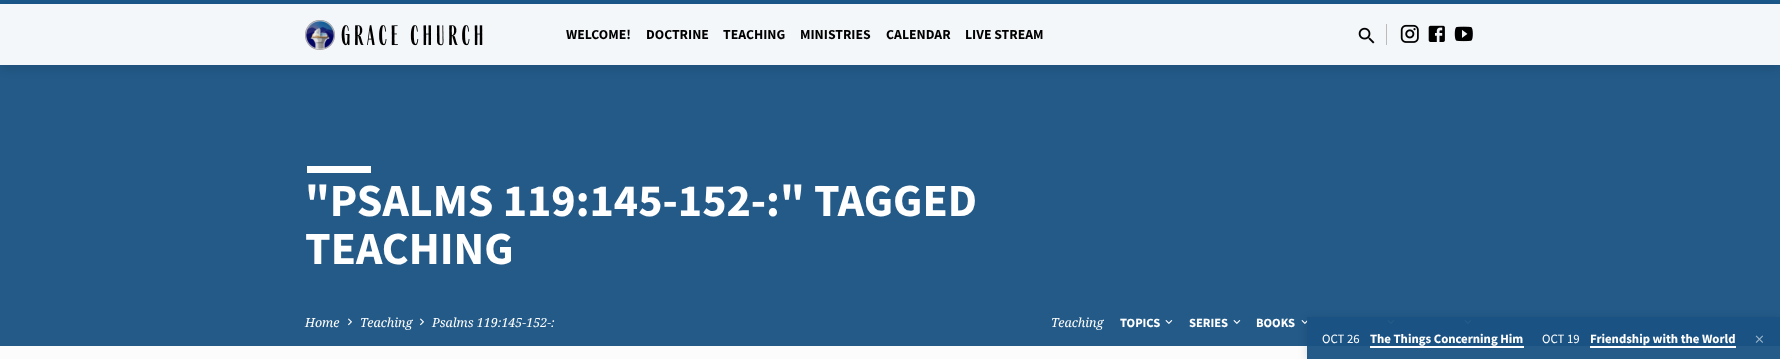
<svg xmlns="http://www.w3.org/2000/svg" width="1780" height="359">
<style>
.a{font:bold 13.75px Source Sans Pro;fill:#000}
.b{font:bold 46.1px Source Sans Pro;fill:#fff}
.c{font:italic 12.5px Noto Serif;fill:#fff}
.d{font:bold 12.5px Source Sans Pro;fill:#fff}
.e{font:12.75px Source Sans Pro;fill:#fff}
.f{font:bold 12.75px Source Sans Pro;fill:#fff}
</style>
<defs>
<clipPath id="clip1"><path d="M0 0h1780v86h-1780zm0 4h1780v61h-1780z" clip-rule="evenodd"/></clipPath>
<linearGradient id="g1" gradientUnits="userSpaceOnUse" x1="890" y1="346" x2="890" y2="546"><stop offset="0.5" stop-color="#fcfcfc"/><stop offset="1" stop-color="#fafafa"/></linearGradient>
<clipPath id="clip2"><path d="M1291 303h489v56h-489zm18 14h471v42h-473v-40c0-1 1-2 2-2z" clip-rule="evenodd"/></clipPath>
</defs>
<rect width="100%" height="100%" fill="#fff"/>
<path fill="#1b5a8d" d="M0 0h1780v4H0z"/>
<path fill="#f4f7f9" d="M0 4h1780v61H0z"/>
<path fill="#235a88" d="M0 65h1780v281H0z"/>
<g clip-path="url(#clip1)">
<path fill="#00000024" filter="blur(6px)" d="M0 6h1780v61H0z"/>
</g>
<image href="1.png" x="305" y="20" width="178" height="30"/>
<image href="2.png" x="1358" y="27" width="17" height="17"/>
<path fill="#bbb" d="M1386 24h1v21H1386z"/>
<image href="3.png" x="1400" y="24" width="19" height="19"/>
<image href="4.png" x="1428" y="25" width="17" height="17"/>
<image href="5.png" x="1454" y="26" width="19" height="16"/>
<path fill="#fff" d="M307 166h64v7H307z"/>
<image href="6.png" x="348" y="318" width="4" height="8"/>
<image href="6.png" x="420" y="318" width="4" height="8"/>
<image href="7.png" x="1165" y="320" width="8" height="4"/>
<image href="7.png" x="1233" y="320" width="8" height="4"/>
<image href="7.png" x="1301" y="320" width="8" height="4"/>
<image href="7.png" x="1387" y="320" width="8" height="4"/>
<image href="7.png" x="1464" y="320" width="8" height="4"/>
<path fill="url(#g1)" d="M0 346h1780v13H0z"/>
<g clip-path="url(#clip2)">
<rect fill="#0000001f" filter="blur(5px)" x="1307" y="319" width="473" height="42" rx="2"/>
</g>
<path fill="#1b5a8df2" d="M1309 317h471v42h-473v-40c0-1 1-2 2-2z"/>
<path fill="#00000012" d="M1307 317h473v42H1307z"/>
<path fill="#fff" d="M1370 346h154v2H1370z"/>
<path fill="#fff" d="M1590 346h146v2H1590z"/>
<image href="8.png" x="1755" y="335" width="8" height="8"/>
<text class="a" x="566" y="39">WELCOME!</text>
<text class="a" x="646" y="39">DOCTRINE</text>
<text class="a" x="723" y="39">TEACHING</text>
<text class="a" x="800" y="39">MINISTRIES</text>
<text class="a" x="886" y="39">CALENDAR</text>
<text class="a" x="965" y="39">LIVE STREAM</text>
<text class="b" x="305" y="216">"PSALMS 119:145-152-:" TAGGED</text>
<text class="b" x="305" y="264">TEACHING</text>
<text class="c" x="305" y="327">Home</text>
<text class="c" x="360" y="327">Teaching</text>
<text class="c" x="432" y="327">Psalms 119:145-152-:</text>
<text class="c" x="1051" y="327">Teaching</text>
<text class="d" x="1120" y="327">TOPICS</text>
<text class="d" x="1189" y="327">SERIES</text>
<text class="d" x="1256" y="327">BOOKS</text>
<text class="e" x="1322" y="343">OCT 26</text>
<text class="f" x="1370" y="343">The Things Concerning Him</text>
<text class="e" x="1542" y="343">OCT 19</text>
<text class="f" x="1590" y="343">Friendship with the World</text>
</svg>
